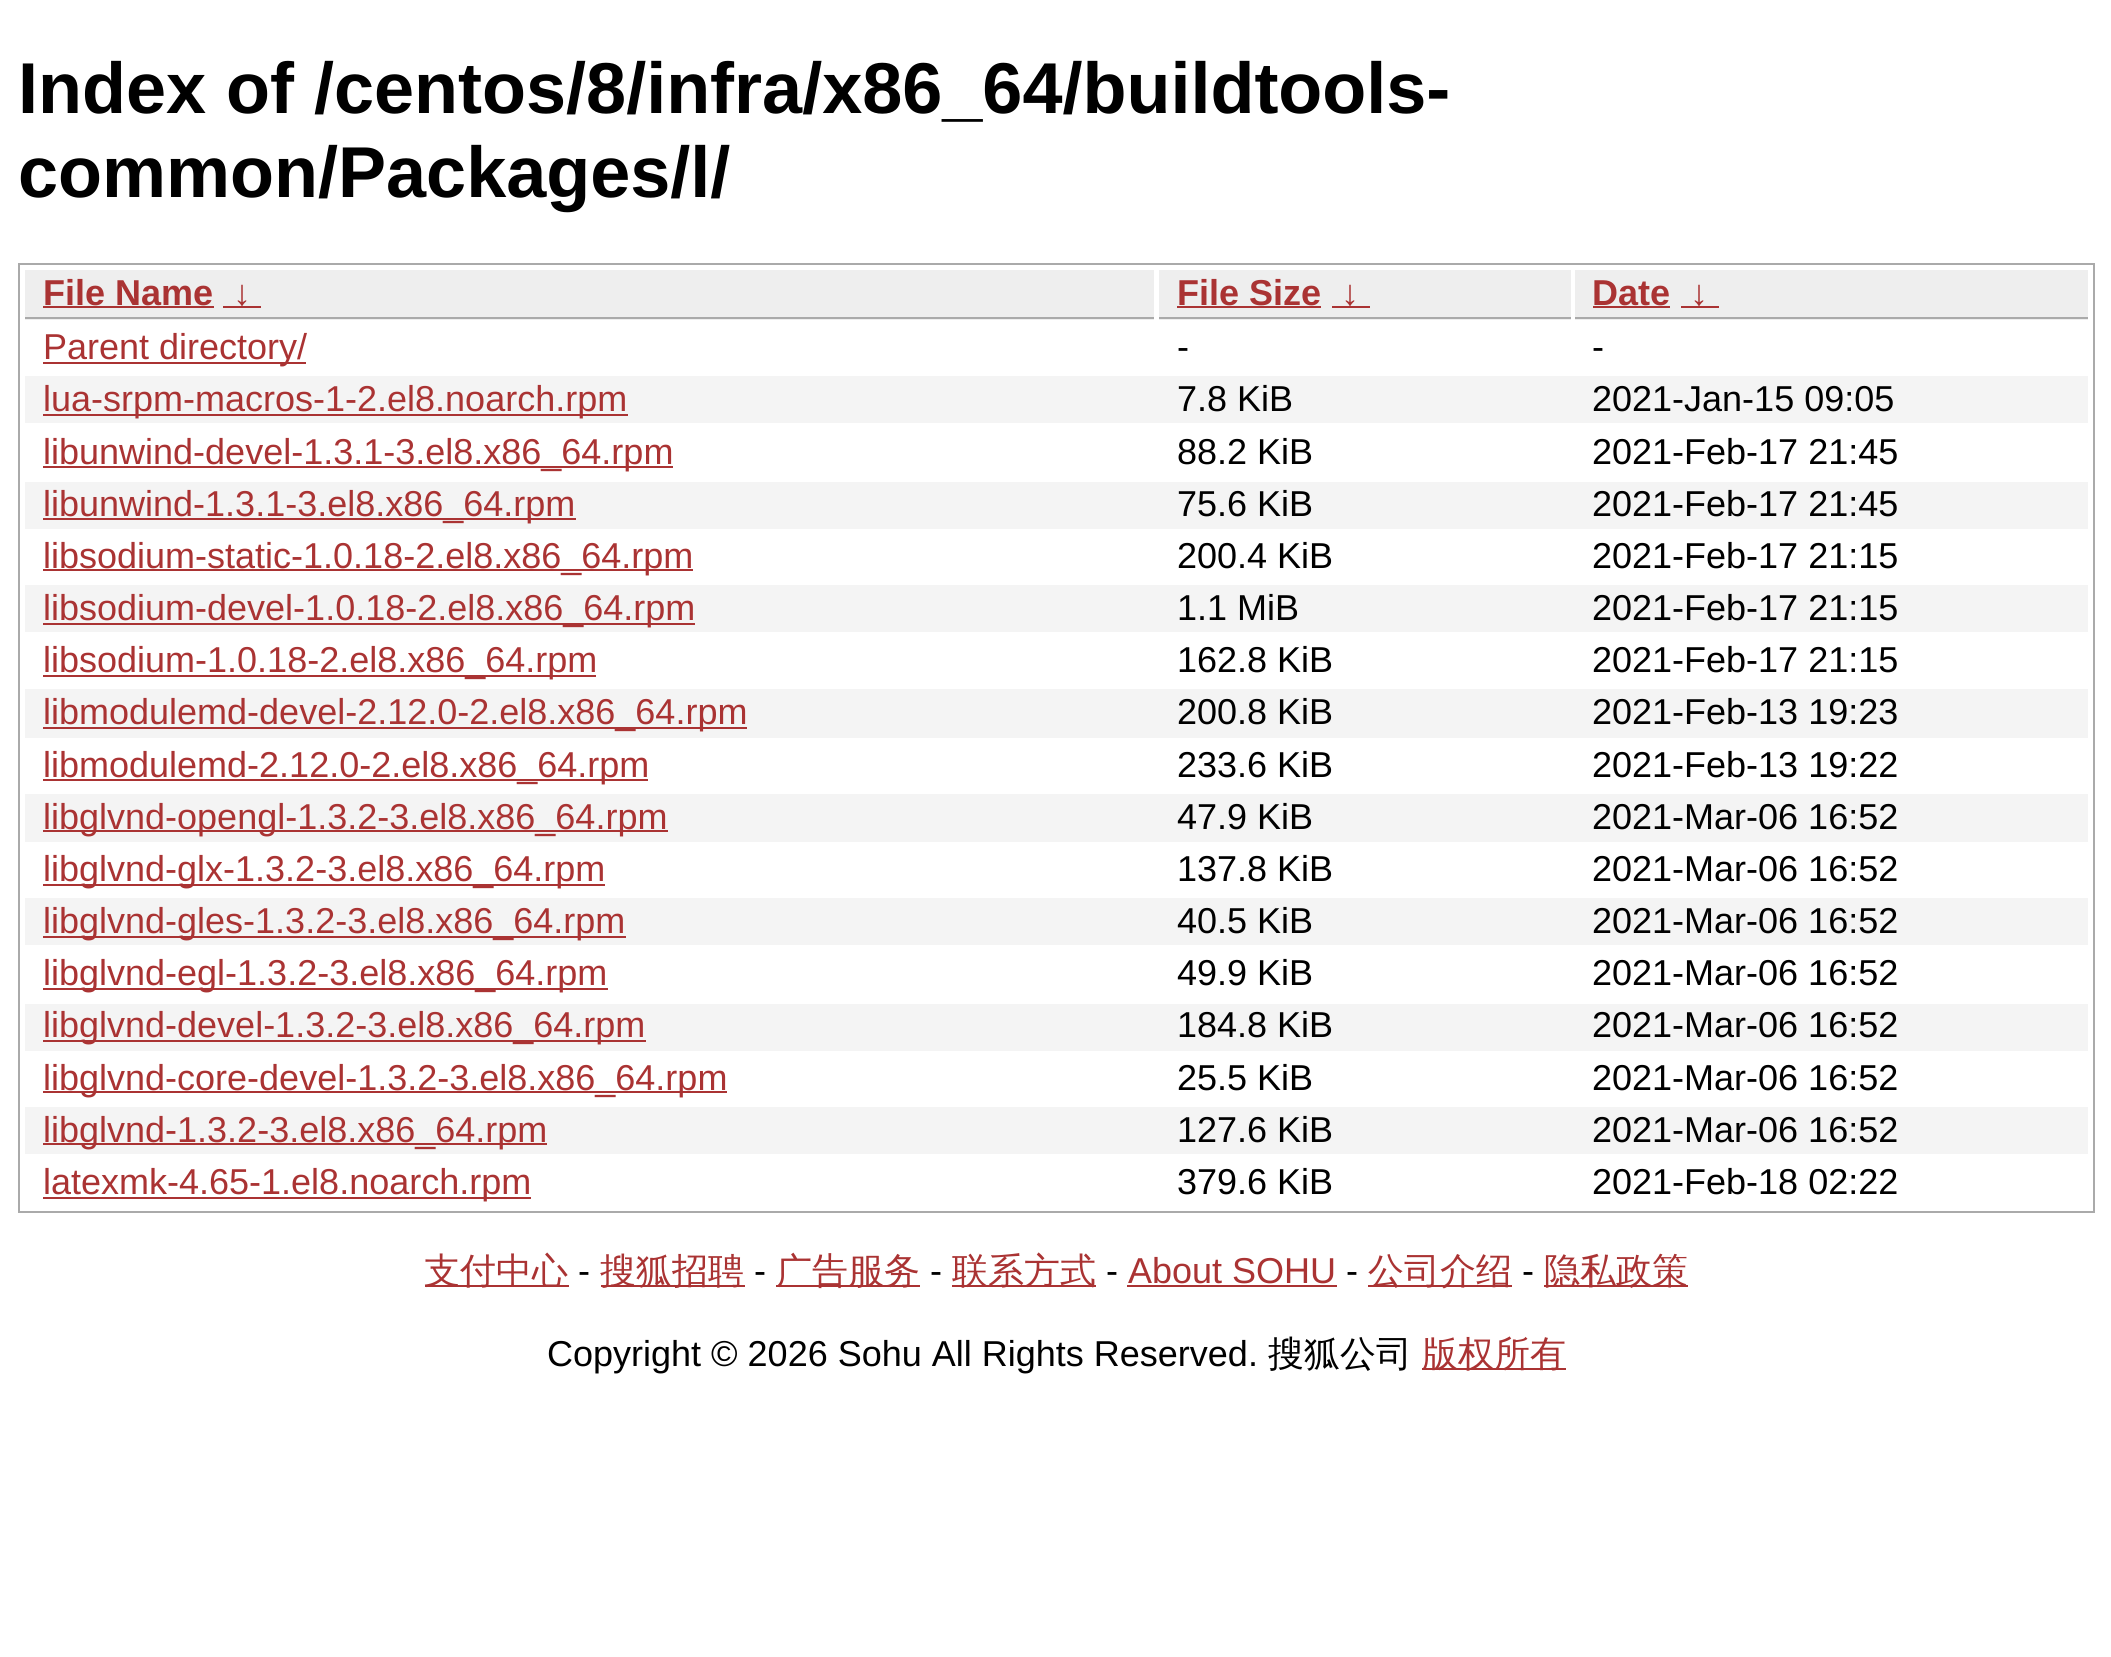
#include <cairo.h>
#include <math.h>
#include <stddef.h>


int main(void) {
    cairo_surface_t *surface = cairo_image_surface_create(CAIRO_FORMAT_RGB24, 2111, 1657);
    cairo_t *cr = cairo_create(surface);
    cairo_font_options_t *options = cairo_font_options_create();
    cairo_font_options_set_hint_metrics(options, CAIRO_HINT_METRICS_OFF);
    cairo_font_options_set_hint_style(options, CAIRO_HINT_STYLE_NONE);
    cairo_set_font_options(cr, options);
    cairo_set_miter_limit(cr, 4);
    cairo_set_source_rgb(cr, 1, 1, 1);
    cairo_paint(cr);
    cairo_select_font_face(cr, "Liberation Sans", CAIRO_FONT_SLANT_NORMAL, CAIRO_FONT_WEIGHT_BOLD);
    cairo_set_font_size(cr, 72);
    cairo_set_source_rgb(cr, 0, 0, 0);
    cairo_move_to(cr, 18, 113);
    cairo_show_text(cr, "Index of /centos/8/infra/x86_64/buildtools-");
    cairo_move_to(cr, 18, 197);
    cairo_show_text(cr, "common/Packages/l/");
    cairo_rectangle(cr, 19, 264, 2075, 948);
    cairo_set_source_rgb(cr, 0.667, 0.667, 0.667);
    cairo_stroke(cr);
    cairo_set_source_rgb(cr, 0.933, 0.933, 0.933);
    cairo_rectangle(cr, 25, 270, 1129, 50);
    cairo_fill(cr);
    cairo_set_source_rgb(cr, 0.667, 0.667, 0.667);
    cairo_rectangle(cr, 25, 317, 1129, 2);
    cairo_fill(cr);
    cairo_set_font_size(cr, 36);
    cairo_set_source_rgb(cr, 0.667, 0.2, 0.2);
    cairo_move_to(cr, 43, 305);
    cairo_show_text(cr, "File Name");
    cairo_rectangle(cr, 43, 306, 171, 2);
    cairo_fill(cr);
    cairo_rectangle(cr, 223, 306, 38, 2);
    cairo_fill(cr);
    cairo_move_to(cr, 233, 305);
    cairo_show_text(cr, "↓");
    cairo_set_source_rgb(cr, 0.933, 0.933, 0.933);
    cairo_rectangle(cr, 1159, 270, 412, 50);
    cairo_fill(cr);
    cairo_set_source_rgb(cr, 0.667, 0.667, 0.667);
    cairo_rectangle(cr, 1159, 317, 412, 2);
    cairo_fill(cr);
    cairo_set_source_rgb(cr, 0.667, 0.2, 0.2);
    cairo_move_to(cr, 1177, 305);
    cairo_show_text(cr, "File Size");
    cairo_rectangle(cr, 1177, 306, 144, 2);
    cairo_fill(cr);
    cairo_rectangle(cr, 1332, 306, 38, 2);
    cairo_fill(cr);
    cairo_move_to(cr, 1341, 305);
    cairo_show_text(cr, "↓");
    cairo_set_source_rgb(cr, 0.933, 0.933, 0.933);
    cairo_rectangle(cr, 1575, 270, 513, 50);
    cairo_fill(cr);
    cairo_set_source_rgb(cr, 0.667, 0.667, 0.667);
    cairo_rectangle(cr, 1575, 317, 513, 2);
    cairo_fill(cr);
    cairo_set_source_rgb(cr, 0.667, 0.2, 0.2);
    cairo_move_to(cr, 1592, 305);
    cairo_show_text(cr, "Date");
    cairo_rectangle(cr, 1593, 306, 77, 2);
    cairo_fill(cr);
    cairo_rectangle(cr, 1681, 306, 38, 2);
    cairo_fill(cr);
    cairo_move_to(cr, 1690, 305);
    cairo_show_text(cr, "↓");
    cairo_rectangle(cr, 43, 362, 263, 2);
    cairo_fill(cr);
    cairo_select_font_face(cr, "Liberation Sans", CAIRO_FONT_SLANT_NORMAL, CAIRO_FONT_WEIGHT_NORMAL);
    cairo_move_to(cr, 43, 359);
    cairo_show_text(cr, "Parent directory/");
    cairo_set_source_rgb(cr, 0, 0, 0);
    cairo_move_to(cr, 1177, 359);
    cairo_show_text(cr, "-");
    cairo_move_to(cr, 1592, 359);
    cairo_show_text(cr, "-");
    cairo_set_source_rgb(cr, 0.957, 0.957, 0.957);
    cairo_rectangle(cr, 25, 376, 2063, 47);
    cairo_fill(cr);
    cairo_set_source_rgb(cr, 0.667, 0.2, 0.2);
    cairo_rectangle(cr, 43, 414, 585, 2);
    cairo_fill(cr);
    cairo_move_to(cr, 43, 411);
    cairo_show_text(cr, "lua-srpm-macros-1-2.el8.noarch.rpm");
    cairo_set_source_rgb(cr, 0, 0, 0);
    cairo_move_to(cr, 1177, 411);
    cairo_show_text(cr, "7.8 KiB");
    cairo_move_to(cr, 1592, 411);
    cairo_show_text(cr, "2021-Jan-15 09:05");
    cairo_set_source_rgb(cr, 0.667, 0.2, 0.2);
    cairo_rectangle(cr, 43, 466, 630, 2);
    cairo_fill(cr);
    cairo_move_to(cr, 43, 464);
    cairo_show_text(cr, "libunwind-devel-1.3.1-3.el8.x86_64.rpm");
    cairo_set_source_rgb(cr, 0, 0, 0);
    cairo_move_to(cr, 1177, 464);
    cairo_show_text(cr, "88.2 KiB");
    cairo_move_to(cr, 1592, 464);
    cairo_show_text(cr, "2021-Feb-17 21:45");
    cairo_set_source_rgb(cr, 0.957, 0.957, 0.957);
    cairo_rectangle(cr, 25, 482, 2063, 47);
    cairo_fill(cr);
    cairo_set_source_rgb(cr, 0.667, 0.2, 0.2);
    cairo_rectangle(cr, 43, 518, 533, 2);
    cairo_fill(cr);
    cairo_move_to(cr, 43, 516);
    cairo_show_text(cr, "libunwind-1.3.1-3.el8.x86_64.rpm");
    cairo_set_source_rgb(cr, 0, 0, 0);
    cairo_move_to(cr, 1177, 516);
    cairo_show_text(cr, "75.6 KiB");
    cairo_move_to(cr, 1592, 516);
    cairo_show_text(cr, "2021-Feb-17 21:45");
    cairo_set_source_rgb(cr, 0.667, 0.2, 0.2);
    cairo_rectangle(cr, 43, 569, 650, 2);
    cairo_fill(cr);
    cairo_move_to(cr, 43, 568);
    cairo_show_text(cr, "libsodium-static-1.0.18-2.el8.x86_64.rpm");
    cairo_set_source_rgb(cr, 0, 0, 0);
    cairo_move_to(cr, 1177, 568);
    cairo_show_text(cr, "200.4 KiB");
    cairo_move_to(cr, 1592, 568);
    cairo_show_text(cr, "2021-Feb-17 21:15");
    cairo_set_source_rgb(cr, 0.957, 0.957, 0.957);
    cairo_rectangle(cr, 25, 585, 2063, 47);
    cairo_fill(cr);
    cairo_set_source_rgb(cr, 0.667, 0.2, 0.2);
    cairo_rectangle(cr, 43, 623, 652, 2);
    cairo_fill(cr);
    cairo_move_to(cr, 43, 620);
    cairo_show_text(cr, "libsodium-devel-1.0.18-2.el8.x86_64.rpm");
    cairo_set_source_rgb(cr, 0, 0, 0);
    cairo_move_to(cr, 1177, 620);
    cairo_show_text(cr, "1.1 MiB");
    cairo_move_to(cr, 1592, 620);
    cairo_show_text(cr, "2021-Feb-17 21:15");
    cairo_set_source_rgb(cr, 0.667, 0.2, 0.2);
    cairo_rectangle(cr, 43, 675, 553, 2);
    cairo_fill(cr);
    cairo_move_to(cr, 43, 672);
    cairo_show_text(cr, "libsodium-1.0.18-2.el8.x86_64.rpm");
    cairo_set_source_rgb(cr, 0, 0, 0);
    cairo_move_to(cr, 1177, 672);
    cairo_show_text(cr, "162.8 KiB");
    cairo_move_to(cr, 1592, 672);
    cairo_show_text(cr, "2021-Feb-17 21:15");
    cairo_set_source_rgb(cr, 0.957, 0.957, 0.957);
    cairo_rectangle(cr, 25, 689, 2063, 49);
    cairo_fill(cr);
    cairo_set_source_rgb(cr, 0.667, 0.2, 0.2);
    cairo_rectangle(cr, 43, 727, 704, 2);
    cairo_fill(cr);
    cairo_move_to(cr, 43, 724);
    cairo_show_text(cr, "libmodulemd-devel-2.12.0-2.el8.x86_64.rpm");
    cairo_set_source_rgb(cr, 0, 0, 0);
    cairo_move_to(cr, 1177, 724);
    cairo_show_text(cr, "200.8 KiB");
    cairo_move_to(cr, 1592, 724);
    cairo_show_text(cr, "2021-Feb-13 19:23");
    cairo_set_source_rgb(cr, 0.667, 0.2, 0.2);
    cairo_rectangle(cr, 43, 779, 605, 2);
    cairo_fill(cr);
    cairo_move_to(cr, 43, 777);
    cairo_show_text(cr, "libmodulemd-2.12.0-2.el8.x86_64.rpm");
    cairo_set_source_rgb(cr, 0, 0, 0);
    cairo_move_to(cr, 1177, 777);
    cairo_show_text(cr, "233.6 KiB");
    cairo_move_to(cr, 1592, 777);
    cairo_show_text(cr, "2021-Feb-13 19:22");
    cairo_set_source_rgb(cr, 0.957, 0.957, 0.957);
    cairo_rectangle(cr, 25, 794, 2063, 48);
    cairo_fill(cr);
    cairo_set_source_rgb(cr, 0.667, 0.2, 0.2);
    cairo_rectangle(cr, 43, 830, 625, 2);
    cairo_fill(cr);
    cairo_move_to(cr, 43, 829);
    cairo_show_text(cr, "libglvnd-opengl-1.3.2-3.el8.x86_64.rpm");
    cairo_set_source_rgb(cr, 0, 0, 0);
    cairo_move_to(cr, 1177, 829);
    cairo_show_text(cr, "47.9 KiB");
    cairo_move_to(cr, 1592, 829);
    cairo_show_text(cr, "2021-Mar-06 16:52");
    cairo_set_source_rgb(cr, 0.667, 0.2, 0.2);
    cairo_rectangle(cr, 43, 884, 562, 2);
    cairo_fill(cr);
    cairo_move_to(cr, 43, 881);
    cairo_show_text(cr, "libglvnd-glx-1.3.2-3.el8.x86_64.rpm");
    cairo_set_source_rgb(cr, 0, 0, 0);
    cairo_move_to(cr, 1177, 881);
    cairo_show_text(cr, "137.8 KiB");
    cairo_move_to(cr, 1592, 881);
    cairo_show_text(cr, "2021-Mar-06 16:52");
    cairo_set_source_rgb(cr, 0.957, 0.957, 0.957);
    cairo_rectangle(cr, 25, 898, 2063, 47);
    cairo_fill(cr);
    cairo_set_source_rgb(cr, 0.667, 0.2, 0.2);
    cairo_rectangle(cr, 43, 936, 583, 2);
    cairo_fill(cr);
    cairo_move_to(cr, 43, 933);
    cairo_show_text(cr, "libglvnd-gles-1.3.2-3.el8.x86_64.rpm");
    cairo_set_source_rgb(cr, 0, 0, 0);
    cairo_move_to(cr, 1177, 933);
    cairo_show_text(cr, "40.5 KiB");
    cairo_move_to(cr, 1592, 933);
    cairo_show_text(cr, "2021-Mar-06 16:52");
    cairo_set_source_rgb(cr, 0.667, 0.2, 0.2);
    cairo_rectangle(cr, 43, 988, 565, 2);
    cairo_fill(cr);
    cairo_move_to(cr, 43, 985);
    cairo_show_text(cr, "libglvnd-egl-1.3.2-3.el8.x86_64.rpm");
    cairo_set_source_rgb(cr, 0, 0, 0);
    cairo_move_to(cr, 1177, 985);
    cairo_show_text(cr, "49.9 KiB");
    cairo_move_to(cr, 1592, 985);
    cairo_show_text(cr, "2021-Mar-06 16:52");
    cairo_set_source_rgb(cr, 0.957, 0.957, 0.957);
    cairo_rectangle(cr, 25, 1004, 2063, 47);
    cairo_fill(cr);
    cairo_set_source_rgb(cr, 0.667, 0.2, 0.2);
    cairo_rectangle(cr, 43, 1040, 603, 2);
    cairo_fill(cr);
    cairo_move_to(cr, 43, 1037);
    cairo_show_text(cr, "libglvnd-devel-1.3.2-3.el8.x86_64.rpm");
    cairo_set_source_rgb(cr, 0, 0, 0);
    cairo_move_to(cr, 1177, 1037);
    cairo_show_text(cr, "184.8 KiB");
    cairo_move_to(cr, 1592, 1037);
    cairo_show_text(cr, "2021-Mar-06 16:52");
    cairo_set_source_rgb(cr, 0.667, 0.2, 0.2);
    cairo_rectangle(cr, 43, 1091, 684, 2);
    cairo_fill(cr);
    cairo_move_to(cr, 43, 1090);
    cairo_show_text(cr, "libglvnd-core-devel-1.3.2-3.el8.x86_64.rpm");
    cairo_set_source_rgb(cr, 0, 0, 0);
    cairo_move_to(cr, 1177, 1090);
    cairo_show_text(cr, "25.5 KiB");
    cairo_move_to(cr, 1592, 1090);
    cairo_show_text(cr, "2021-Mar-06 16:52");
    cairo_set_source_rgb(cr, 0.957, 0.957, 0.957);
    cairo_rectangle(cr, 25, 1107, 2063, 47);
    cairo_fill(cr);
    cairo_set_source_rgb(cr, 0.667, 0.2, 0.2);
    cairo_rectangle(cr, 43, 1143, 504, 2);
    cairo_fill(cr);
    cairo_move_to(cr, 43, 1142);
    cairo_show_text(cr, "libglvnd-1.3.2-3.el8.x86_64.rpm");
    cairo_set_source_rgb(cr, 0, 0, 0);
    cairo_move_to(cr, 1177, 1142);
    cairo_show_text(cr, "127.6 KiB");
    cairo_move_to(cr, 1592, 1142);
    cairo_show_text(cr, "2021-Mar-06 16:52");
    cairo_set_source_rgb(cr, 0.667, 0.2, 0.2);
    cairo_rectangle(cr, 43, 1197, 488, 2);
    cairo_fill(cr);
    cairo_move_to(cr, 43, 1194);
    cairo_show_text(cr, "latexmk-4.65-1.el8.noarch.rpm");
    cairo_set_source_rgb(cr, 0, 0, 0);
    cairo_move_to(cr, 1177, 1194);
    cairo_show_text(cr, "379.6 KiB");
    cairo_move_to(cr, 1592, 1194);
    cairo_show_text(cr, "2021-Feb-18 02:22");
    cairo_set_source_rgb(cr, 0.667, 0.2, 0.2);
    cairo_rectangle(cr, 425, 1285, 144, 2);
    cairo_fill(cr);
    cairo_select_font_face(cr, "WenQuanYi Zen Hei Medium", CAIRO_FONT_SLANT_NORMAL, CAIRO_FONT_WEIGHT_NORMAL);
    cairo_move_to(cr, 424, 1283);
    cairo_show_text(cr, "支付中心");
    cairo_select_font_face(cr, "Liberation Sans", CAIRO_FONT_SLANT_NORMAL, CAIRO_FONT_WEIGHT_NORMAL);
    cairo_set_source_rgb(cr, 0, 0, 0);
    cairo_move_to(cr, 578, 1283);
    cairo_show_text(cr, "-");
    cairo_set_source_rgb(cr, 0.667, 0.2, 0.2);
    cairo_rectangle(cr, 601, 1285, 144, 2);
    cairo_fill(cr);
    cairo_select_font_face(cr, "WenQuanYi Zen Hei Medium", CAIRO_FONT_SLANT_NORMAL, CAIRO_FONT_WEIGHT_NORMAL);
    cairo_move_to(cr, 600, 1283);
    cairo_show_text(cr, "搜狐招聘");
    cairo_select_font_face(cr, "Liberation Sans", CAIRO_FONT_SLANT_NORMAL, CAIRO_FONT_WEIGHT_NORMAL);
    cairo_set_source_rgb(cr, 0, 0, 0);
    cairo_move_to(cr, 754, 1283);
    cairo_show_text(cr, "-");
    cairo_set_source_rgb(cr, 0.667, 0.2, 0.2);
    cairo_rectangle(cr, 776, 1285, 144, 2);
    cairo_fill(cr);
    cairo_select_font_face(cr, "WenQuanYi Zen Hei Medium", CAIRO_FONT_SLANT_NORMAL, CAIRO_FONT_WEIGHT_NORMAL);
    cairo_move_to(cr, 776, 1283);
    cairo_show_text(cr, "广告服务");
    cairo_select_font_face(cr, "Liberation Sans", CAIRO_FONT_SLANT_NORMAL, CAIRO_FONT_WEIGHT_NORMAL);
    cairo_set_source_rgb(cr, 0, 0, 0);
    cairo_move_to(cr, 930, 1283);
    cairo_show_text(cr, "-");
    cairo_set_source_rgb(cr, 0.667, 0.2, 0.2);
    cairo_rectangle(cr, 952, 1285, 144, 2);
    cairo_fill(cr);
    cairo_select_font_face(cr, "WenQuanYi Zen Hei Medium", CAIRO_FONT_SLANT_NORMAL, CAIRO_FONT_WEIGHT_NORMAL);
    cairo_move_to(cr, 952, 1283);
    cairo_show_text(cr, "联系方式");
    cairo_select_font_face(cr, "Liberation Sans", CAIRO_FONT_SLANT_NORMAL, CAIRO_FONT_WEIGHT_NORMAL);
    cairo_set_source_rgb(cr, 0, 0, 0);
    cairo_move_to(cr, 1106, 1283);
    cairo_show_text(cr, "-");
    cairo_set_source_rgb(cr, 0.667, 0.2, 0.2);
    cairo_move_to(cr, 1128, 1283);
    cairo_show_text(cr, "About SOHU");
    cairo_rectangle(cr, 1127, 1285, 210, 2);
    cairo_fill(cr);
    cairo_set_source_rgb(cr, 0, 0, 0);
    cairo_move_to(cr, 1346, 1283);
    cairo_show_text(cr, "-");
    cairo_set_source_rgb(cr, 0.667, 0.2, 0.2);
    cairo_rectangle(cr, 1368, 1285, 144, 2);
    cairo_fill(cr);
    cairo_select_font_face(cr, "WenQuanYi Zen Hei Medium", CAIRO_FONT_SLANT_NORMAL, CAIRO_FONT_WEIGHT_NORMAL);
    cairo_move_to(cr, 1368, 1283);
    cairo_show_text(cr, "公司介绍");
    cairo_select_font_face(cr, "Liberation Sans", CAIRO_FONT_SLANT_NORMAL, CAIRO_FONT_WEIGHT_NORMAL);
    cairo_set_source_rgb(cr, 0, 0, 0);
    cairo_move_to(cr, 1522, 1283);
    cairo_show_text(cr, "-");
    cairo_set_source_rgb(cr, 0.667, 0.2, 0.2);
    cairo_rectangle(cr, 1544, 1285, 144, 2);
    cairo_fill(cr);
    cairo_select_font_face(cr, "WenQuanYi Zen Hei Medium", CAIRO_FONT_SLANT_NORMAL, CAIRO_FONT_WEIGHT_NORMAL);
    cairo_move_to(cr, 1544, 1283);
    cairo_show_text(cr, "隐私政策");
    cairo_select_font_face(cr, "Liberation Sans", CAIRO_FONT_SLANT_NORMAL, CAIRO_FONT_WEIGHT_NORMAL);
    cairo_set_source_rgb(cr, 0, 0, 0);
    cairo_move_to(cr, 547, 1366);
    cairo_show_text(cr, "Copyright © 2026 Sohu All Rights Reserved.");
    cairo_select_font_face(cr, "WenQuanYi Zen Hei Medium", CAIRO_FONT_SLANT_NORMAL, CAIRO_FONT_WEIGHT_NORMAL);
    cairo_move_to(cr, 1268, 1366);
    cairo_show_text(cr, "搜狐公司");
    cairo_set_source_rgb(cr, 0.667, 0.2, 0.2);
    cairo_rectangle(cr, 1422, 1368, 144, 2);
    cairo_fill(cr);
    cairo_move_to(cr, 1422, 1366);
    cairo_show_text(cr, "版权所有");
    cairo_surface_write_to_png(surface, "page.png");
    cairo_font_options_destroy(options);
    cairo_destroy(cr);
    cairo_surface_destroy(surface);
    return 0;
}
